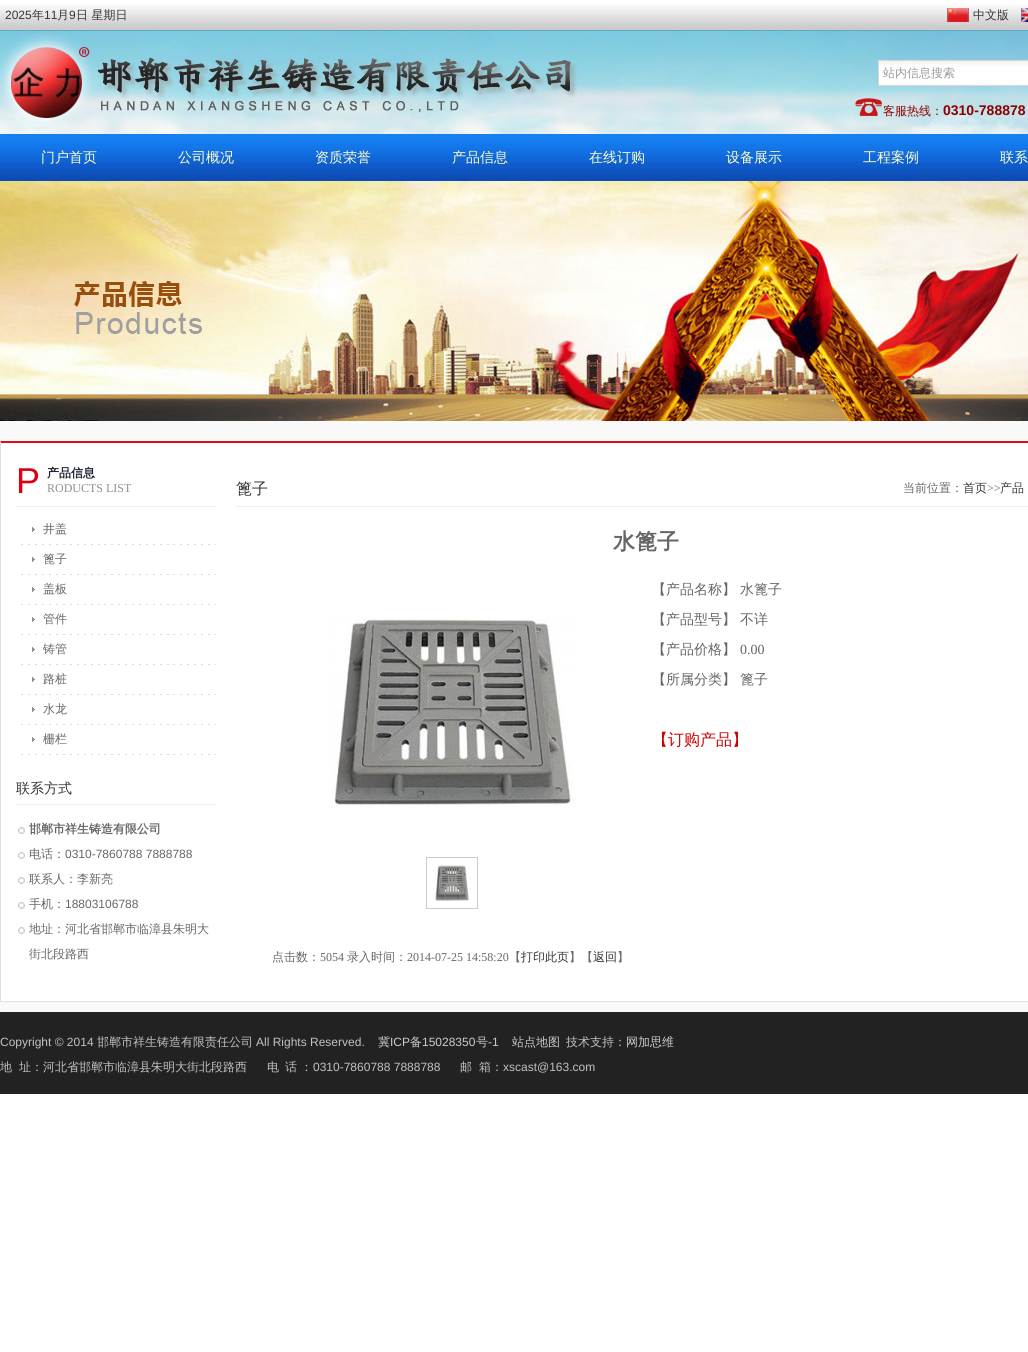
#include <cairo.h>
#include <math.h>
#include <stddef.h>


static void picture(cairo_t *cr, const char *path, double x, double y, double w, double h) {
    cairo_surface_t *image = cairo_image_surface_create_from_png(path);
    cairo_save(cr);
    cairo_set_source_surface(cr, image, x, y);
    cairo_rectangle(cr, x, y, w, h);
    cairo_fill(cr);
    cairo_restore(cr);
    cairo_surface_destroy(image);
}

int main(void) {
    cairo_surface_t *surface = cairo_image_surface_create(CAIRO_FORMAT_RGB24, 1028, 1352);
    cairo_t *cr = cairo_create(surface);
    cairo_font_options_t *options = cairo_font_options_create();
    cairo_font_options_set_hint_metrics(options, CAIRO_HINT_METRICS_OFF);
    cairo_font_options_set_hint_style(options, CAIRO_HINT_STYLE_NONE);
    cairo_set_font_options(cr, options);
    cairo_set_miter_limit(cr, 4);
    cairo_set_source_rgb(cr, 1, 1, 1);
    cairo_paint(cr);
    picture(cr, "img1.png", 0, 31, 1028, 103);
    picture(cr, "img2.png", 0, 4, 1028, 27);
    cairo_select_font_face(cr, "Liberation Sans", CAIRO_FONT_SLANT_NORMAL, CAIRO_FONT_WEIGHT_NORMAL);
    cairo_set_font_size(cr, 12);
    cairo_set_source_rgb(cr, 0.208, 0.208, 0.208);
    cairo_move_to(cr, 5, 19);
    cairo_show_text(cr, "2025");
    cairo_select_font_face(cr, "WenQuanYi Zen Hei Medium", CAIRO_FONT_SLANT_NORMAL, CAIRO_FONT_WEIGHT_NORMAL);
    cairo_move_to(cr, 32, 19);
    cairo_show_text(cr, "年");
    cairo_select_font_face(cr, "Liberation Sans", CAIRO_FONT_SLANT_NORMAL, CAIRO_FONT_WEIGHT_NORMAL);
    cairo_move_to(cr, 44, 19);
    cairo_show_text(cr, "11");
    cairo_select_font_face(cr, "WenQuanYi Zen Hei Medium", CAIRO_FONT_SLANT_NORMAL, CAIRO_FONT_WEIGHT_NORMAL);
    cairo_move_to(cr, 57, 19);
    cairo_show_text(cr, "月");
    cairo_select_font_face(cr, "Liberation Sans", CAIRO_FONT_SLANT_NORMAL, CAIRO_FONT_WEIGHT_NORMAL);
    cairo_move_to(cr, 69, 19);
    cairo_show_text(cr, "9");
    cairo_select_font_face(cr, "WenQuanYi Zen Hei Medium", CAIRO_FONT_SLANT_NORMAL, CAIRO_FONT_WEIGHT_NORMAL);
    cairo_move_to(cr, 76, 19);
    cairo_show_text(cr, "日 星期日");
    picture(cr, "img3.png", 947, 8, 22, 14);
    cairo_move_to(cr, 973, 19);
    cairo_show_text(cr, "中文版");
    picture(cr, "img4.png", 1021, 8, 7, 14);
    picture(cr, "img5.png", 0, 33, 577, 94);
    picture(cr, "img6.png", 878, 60, 150, 26);
    cairo_set_source_rgb(cr, 0.6, 0.6, 0.6);
    cairo_move_to(cr, 883, 77);
    cairo_show_text(cr, "站内信息搜索");
    picture(cr, "img7.png", 855, 98, 27, 18);
    cairo_set_source_rgb(cr, 0.557, 0, 0);
    cairo_move_to(cr, 883, 115);
    cairo_show_text(cr, "客服热线：");
    cairo_select_font_face(cr, "Liberation Sans", CAIRO_FONT_SLANT_NORMAL, CAIRO_FONT_WEIGHT_BOLD);
    cairo_set_font_size(cr, 14);
    cairo_move_to(cr, 943, 115);
    cairo_show_text(cr, "0310-788878");
    picture(cr, "img8.png", 0, 134, 1028, 47);
    cairo_select_font_face(cr, "WenQuanYi Zen Hei Medium", CAIRO_FONT_SLANT_NORMAL, CAIRO_FONT_WEIGHT_NORMAL);
    cairo_set_source_rgb(cr, 1, 1, 0.8);
    cairo_move_to(cr, 41, 162);
    cairo_show_text(cr, "门户首页");
    cairo_move_to(cr, 178, 162);
    cairo_show_text(cr, "公司概况");
    cairo_move_to(cr, 315, 162);
    cairo_show_text(cr, "资质荣誉");
    cairo_move_to(cr, 452, 162);
    cairo_show_text(cr, "产品信息");
    cairo_move_to(cr, 589, 162);
    cairo_show_text(cr, "在线订购");
    cairo_move_to(cr, 726, 162);
    cairo_show_text(cr, "设备展示");
    cairo_move_to(cr, 863, 162);
    cairo_show_text(cr, "工程案例");
    cairo_move_to(cr, 1000, 162);
    cairo_show_text(cr, "联系");
    picture(cr, "img9.png", 0, 181, 1028, 240);
    cairo_set_source_rgb(cr, 0.976, 0.976, 0.976);
    cairo_rectangle(cr, 0, 421, 1028, 591);
    cairo_fill(cr);
    cairo_set_source_rgb(cr, 1, 1, 1);
    cairo_rectangle(cr, 1, 443, 1027, 558);
    cairo_fill(cr);
    cairo_set_source_rgb(cr, 0.875, 0.047, 0.106);
    cairo_new_path(cr);
    cairo_move_to(cr, 0, 441);
    cairo_line_to(cr, 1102, 441);
    cairo_line_to(cr, 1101, 443);
    cairo_line_to(cr, 1, 443);
    cairo_close_path(cr);
    cairo_fill(cr);
    cairo_set_source_rgb(cr, 0.878, 0.878, 0.878);
    cairo_rectangle(cr, 0, 1001, 1028, 1);
    cairo_fill(cr);
    cairo_new_path(cr);
    cairo_move_to(cr, 0, 1002);
    cairo_line_to(cr, 0, 441);
    cairo_line_to(cr, 1, 443);
    cairo_line_to(cr, 1, 1001);
    cairo_close_path(cr);
    cairo_fill(cr);
    cairo_set_source_rgb(cr, 0.929, 0.929, 0.929);
    cairo_rectangle(cr, 16, 506, 200, 1);
    cairo_fill(cr);
    cairo_select_font_face(cr, "Liberation Sans", CAIRO_FONT_SLANT_NORMAL, CAIRO_FONT_WEIGHT_NORMAL);
    cairo_set_font_size(cr, 36);
    cairo_set_source_rgb(cr, 0.871, 0, 0.063);
    cairo_move_to(cr, 16, 493);
    cairo_show_text(cr, "P");
    cairo_select_font_face(cr, "WenQuanYi Zen Hei", CAIRO_FONT_SLANT_NORMAL, CAIRO_FONT_WEIGHT_BOLD);
    cairo_set_font_size(cr, 12);
    cairo_set_source_rgb(cr, 0.11, 0.122, 0.18);
    cairo_move_to(cr, 47, 477);
    cairo_show_text(cr, "产品信息");
    cairo_select_font_face(cr, "Liberation Serif", CAIRO_FONT_SLANT_NORMAL, CAIRO_FONT_WEIGHT_NORMAL);
    cairo_set_source_rgb(cr, 0.561, 0.565, 0.584);
    cairo_move_to(cr, 47, 492);
    cairo_show_text(cr, "RODUCTS LIST");
    picture(cr, "img10.png", 21, 527, 195, 18);
    cairo_select_font_face(cr, "WenQuanYi Zen Hei Medium", CAIRO_FONT_SLANT_NORMAL, CAIRO_FONT_WEIGHT_NORMAL);
    cairo_set_source_rgb(cr, 0.4, 0.4, 0.4);
    cairo_move_to(cr, 43, 533);
    cairo_show_text(cr, "井盖");
    picture(cr, "img10.png", 21, 557, 195, 18);
    cairo_move_to(cr, 43, 563);
    cairo_show_text(cr, "篦子");
    picture(cr, "img10.png", 21, 587, 195, 18);
    cairo_move_to(cr, 43, 593);
    cairo_show_text(cr, "盖板");
    picture(cr, "img10.png", 21, 617, 195, 18);
    cairo_move_to(cr, 43, 623);
    cairo_show_text(cr, "管件");
    picture(cr, "img10.png", 21, 647, 195, 18);
    cairo_move_to(cr, 43, 653);
    cairo_show_text(cr, "铸管");
    picture(cr, "img10.png", 21, 677, 195, 18);
    cairo_move_to(cr, 43, 683);
    cairo_show_text(cr, "路桩");
    picture(cr, "img10.png", 21, 707, 195, 18);
    cairo_move_to(cr, 43, 713);
    cairo_show_text(cr, "水龙");
    picture(cr, "img10.png", 21, 737, 195, 18);
    cairo_move_to(cr, 43, 743);
    cairo_show_text(cr, "栅栏");
    cairo_set_source_rgb(cr, 0.937, 0.937, 0.937);
    cairo_rectangle(cr, 16, 804, 200, 1);
    cairo_fill(cr);
    cairo_set_font_size(cr, 14);
    cairo_set_source_rgb(cr, 0.208, 0.208, 0.208);
    cairo_move_to(cr, 16, 793);
    cairo_show_text(cr, "联系方式");
    picture(cr, "img11.png", 18, 827, 7, 7);
    cairo_select_font_face(cr, "WenQuanYi Zen Hei", CAIRO_FONT_SLANT_NORMAL, CAIRO_FONT_WEIGHT_BOLD);
    cairo_set_font_size(cr, 12);
    cairo_set_source_rgb(cr, 0.4, 0.4, 0.4);
    cairo_move_to(cr, 29, 833);
    cairo_show_text(cr, "邯郸市祥生铸造有限公司");
    picture(cr, "img11.png", 18, 852, 7, 7);
    cairo_select_font_face(cr, "WenQuanYi Zen Hei Medium", CAIRO_FONT_SLANT_NORMAL, CAIRO_FONT_WEIGHT_NORMAL);
    cairo_move_to(cr, 29, 858);
    cairo_show_text(cr, "电话：");
    cairo_select_font_face(cr, "Liberation Sans", CAIRO_FONT_SLANT_NORMAL, CAIRO_FONT_WEIGHT_NORMAL);
    cairo_move_to(cr, 65, 858);
    cairo_show_text(cr, "0310-7860788 7888788");
    picture(cr, "img11.png", 18, 877, 7, 7);
    cairo_select_font_face(cr, "WenQuanYi Zen Hei Medium", CAIRO_FONT_SLANT_NORMAL, CAIRO_FONT_WEIGHT_NORMAL);
    cairo_move_to(cr, 29, 883);
    cairo_show_text(cr, "联系人：李新亮");
    picture(cr, "img11.png", 18, 902, 7, 7);
    cairo_move_to(cr, 29, 908);
    cairo_show_text(cr, "手机：");
    cairo_select_font_face(cr, "Liberation Sans", CAIRO_FONT_SLANT_NORMAL, CAIRO_FONT_WEIGHT_NORMAL);
    cairo_move_to(cr, 65, 908);
    cairo_show_text(cr, "18803106788");
    picture(cr, "img11.png", 18, 927, 7, 7);
    cairo_select_font_face(cr, "WenQuanYi Zen Hei Medium", CAIRO_FONT_SLANT_NORMAL, CAIRO_FONT_WEIGHT_NORMAL);
    cairo_move_to(cr, 29, 933);
    cairo_show_text(cr, "地址：河北省邯郸市临漳县朱明大");
    cairo_move_to(cr, 29, 958);
    cairo_show_text(cr, "街北段路西");
    cairo_set_source_rgb(cr, 0.929, 0.929, 0.929);
    cairo_rectangle(cr, 236, 506, 792, 1);
    cairo_fill(cr);
    cairo_set_font_size(cr, 16);
    cairo_set_source_rgb(cr, 0.208, 0.208, 0.208);
    cairo_move_to(cr, 236, 494);
    cairo_show_text(cr, "篦子");
    cairo_set_font_size(cr, 12);
    cairo_set_source_rgb(cr, 0.4, 0.4, 0.4);
    cairo_move_to(cr, 903, 492);
    cairo_show_text(cr, "当前位置：");
    cairo_set_source_rgb(cr, 0.208, 0.208, 0.208);
    cairo_move_to(cr, 963, 492);
    cairo_show_text(cr, "首页");
    cairo_select_font_face(cr, "Liberation Serif", CAIRO_FONT_SLANT_NORMAL, CAIRO_FONT_WEIGHT_NORMAL);
    cairo_set_source_rgb(cr, 0.4, 0.4, 0.4);
    cairo_move_to(cr, 987, 492);
    cairo_show_text(cr, ">>");
    cairo_select_font_face(cr, "WenQuanYi Zen Hei Medium", CAIRO_FONT_SLANT_NORMAL, CAIRO_FONT_WEIGHT_NORMAL);
    cairo_set_source_rgb(cr, 0.208, 0.208, 0.208);
    cairo_move_to(cr, 1000, 492);
    cairo_show_text(cr, "产品");
    cairo_select_font_face(cr, "WenQuanYi Zen Hei", CAIRO_FONT_SLANT_NORMAL, CAIRO_FONT_WEIGHT_BOLD);
    cairo_set_font_size(cr, 22);
    cairo_set_source_rgb(cr, 0.4, 0.4, 0.4);
    cairo_move_to(cr, 613, 549);
    cairo_show_text(cr, "水篦子");
    picture(cr, "img12.png", 329, 617, 247, 192);
    cairo_rectangle(cr, 426.5, 857.5, 51, 51);
    cairo_set_source_rgb(cr, 0.8, 0.8, 0.8);
    cairo_set_line_width(cr, 1);
    cairo_stroke(cr);
    picture(cr, "img13.png", 435, 865, 35, 36);
    cairo_select_font_face(cr, "WenQuanYi Zen Hei Medium", CAIRO_FONT_SLANT_NORMAL, CAIRO_FONT_WEIGHT_NORMAL);
    cairo_set_font_size(cr, 14);
    cairo_set_source_rgb(cr, 0.4, 0.4, 0.4);
    cairo_move_to(cr, 652, 594);
    cairo_show_text(cr, "【产品名称】");
    cairo_move_to(cr, 740, 594);
    cairo_show_text(cr, "水篦子");
    cairo_move_to(cr, 652, 624);
    cairo_show_text(cr, "【产品型号】");
    cairo_move_to(cr, 740, 624);
    cairo_show_text(cr, "不详");
    cairo_move_to(cr, 652, 654);
    cairo_show_text(cr, "【产品价格】");
    cairo_select_font_face(cr, "Liberation Serif", CAIRO_FONT_SLANT_NORMAL, CAIRO_FONT_WEIGHT_NORMAL);
    cairo_move_to(cr, 740, 654);
    cairo_show_text(cr, "0.00");
    cairo_select_font_face(cr, "WenQuanYi Zen Hei Medium", CAIRO_FONT_SLANT_NORMAL, CAIRO_FONT_WEIGHT_NORMAL);
    cairo_move_to(cr, 652, 684);
    cairo_show_text(cr, "【所属分类】");
    cairo_move_to(cr, 740, 684);
    cairo_show_text(cr, "篦子");
    cairo_set_font_size(cr, 16);
    cairo_set_source_rgb(cr, 0.8, 0, 0);
    cairo_move_to(cr, 652, 745);
    cairo_show_text(cr, "【订购产品】");
    cairo_set_font_size(cr, 12);
    cairo_set_source_rgb(cr, 0.4, 0.4, 0.4);
    cairo_move_to(cr, 272, 961);
    cairo_show_text(cr, "点击数：");
    cairo_select_font_face(cr, "Liberation Serif", CAIRO_FONT_SLANT_NORMAL, CAIRO_FONT_WEIGHT_NORMAL);
    cairo_move_to(cr, 320, 961);
    cairo_show_text(cr, "5054");
    cairo_select_font_face(cr, "WenQuanYi Zen Hei Medium", CAIRO_FONT_SLANT_NORMAL, CAIRO_FONT_WEIGHT_NORMAL);
    cairo_move_to(cr, 347, 961);
    cairo_show_text(cr, "录入时间：");
    cairo_select_font_face(cr, "Liberation Serif", CAIRO_FONT_SLANT_NORMAL, CAIRO_FONT_WEIGHT_NORMAL);
    cairo_move_to(cr, 407, 961);
    cairo_show_text(cr, "2014-07-25 14:58:20");
    cairo_select_font_face(cr, "WenQuanYi Zen Hei Medium", CAIRO_FONT_SLANT_NORMAL, CAIRO_FONT_WEIGHT_NORMAL);
    cairo_move_to(cr, 509, 961);
    cairo_show_text(cr, "【");
    cairo_set_source_rgb(cr, 0.208, 0.208, 0.208);
    cairo_move_to(cr, 521, 961);
    cairo_show_text(cr, "打印此页");
    cairo_set_source_rgb(cr, 0.4, 0.4, 0.4);
    cairo_move_to(cr, 569, 961);
    cairo_show_text(cr, "】【");
    cairo_set_source_rgb(cr, 0.208, 0.208, 0.208);
    cairo_move_to(cr, 593, 961);
    cairo_show_text(cr, "返回");
    cairo_set_source_rgb(cr, 0.4, 0.4, 0.4);
    cairo_move_to(cr, 617, 961);
    cairo_show_text(cr, "】");
    cairo_set_source_rgb(cr, 0.133, 0.133, 0.133);
    cairo_rectangle(cr, 0, 1012, 1028, 82);
    cairo_fill(cr);
    cairo_select_font_face(cr, "Liberation Sans", CAIRO_FONT_SLANT_NORMAL, CAIRO_FONT_WEIGHT_NORMAL);
    cairo_set_source_rgb(cr, 0.761, 0.761, 0.761);
    cairo_move_to(cr, 0, 1046);
    cairo_show_text(cr, "Copyright © 2014");
    cairo_select_font_face(cr, "WenQuanYi Zen Hei Medium", CAIRO_FONT_SLANT_NORMAL, CAIRO_FONT_WEIGHT_NORMAL);
    cairo_move_to(cr, 97, 1046);
    cairo_show_text(cr, "邯郸市祥生铸造有限责任公司");
    cairo_select_font_face(cr, "Liberation Sans", CAIRO_FONT_SLANT_NORMAL, CAIRO_FONT_WEIGHT_NORMAL);
    cairo_move_to(cr, 256, 1046);
    cairo_show_text(cr, "All Rights Reserved.");
    cairo_select_font_face(cr, "WenQuanYi Zen Hei Medium", CAIRO_FONT_SLANT_NORMAL, CAIRO_FONT_WEIGHT_NORMAL);
    cairo_set_source_rgb(cr, 0.8, 0.8, 0.8);
    cairo_move_to(cr, 378, 1046);
    cairo_show_text(cr, "冀");
    cairo_select_font_face(cr, "Liberation Sans", CAIRO_FONT_SLANT_NORMAL, CAIRO_FONT_WEIGHT_NORMAL);
    cairo_move_to(cr, 390, 1046);
    cairo_show_text(cr, "ICP");
    cairo_select_font_face(cr, "WenQuanYi Zen Hei Medium", CAIRO_FONT_SLANT_NORMAL, CAIRO_FONT_WEIGHT_NORMAL);
    cairo_move_to(cr, 410, 1046);
    cairo_show_text(cr, "备");
    cairo_select_font_face(cr, "Liberation Sans", CAIRO_FONT_SLANT_NORMAL, CAIRO_FONT_WEIGHT_NORMAL);
    cairo_move_to(cr, 422, 1046);
    cairo_show_text(cr, "15028350");
    cairo_select_font_face(cr, "WenQuanYi Zen Hei Medium", CAIRO_FONT_SLANT_NORMAL, CAIRO_FONT_WEIGHT_NORMAL);
    cairo_move_to(cr, 476, 1046);
    cairo_show_text(cr, "号");
    cairo_select_font_face(cr, "Liberation Sans", CAIRO_FONT_SLANT_NORMAL, CAIRO_FONT_WEIGHT_NORMAL);
    cairo_move_to(cr, 488, 1046);
    cairo_show_text(cr, "-1");
    cairo_select_font_face(cr, "WenQuanYi Zen Hei Medium", CAIRO_FONT_SLANT_NORMAL, CAIRO_FONT_WEIGHT_NORMAL);
    cairo_move_to(cr, 512, 1046);
    cairo_show_text(cr, "站点地图");
    cairo_set_source_rgb(cr, 0.761, 0.761, 0.761);
    cairo_move_to(cr, 566, 1046);
    cairo_show_text(cr, "技术支持：");
    cairo_set_source_rgb(cr, 0.8, 0.8, 0.8);
    cairo_move_to(cr, 626, 1046);
    cairo_show_text(cr, "网加思维");
    cairo_set_source_rgb(cr, 0.761, 0.761, 0.761);
    cairo_move_to(cr, 0, 1071);
    cairo_show_text(cr, "地");
    cairo_move_to(cr, 19, 1071);
    cairo_show_text(cr, "址：河北省邯郸市临漳县朱明大街北段路西");
    cairo_move_to(cr, 267, 1071);
    cairo_show_text(cr, "电");
    cairo_move_to(cr, 285, 1071);
    cairo_show_text(cr, "话 ：");
    cairo_select_font_face(cr, "Liberation Sans", CAIRO_FONT_SLANT_NORMAL, CAIRO_FONT_WEIGHT_NORMAL);
    cairo_move_to(cr, 313, 1071);
    cairo_show_text(cr, "0310-7860788 7888788");
    cairo_select_font_face(cr, "WenQuanYi Zen Hei Medium", CAIRO_FONT_SLANT_NORMAL, CAIRO_FONT_WEIGHT_NORMAL);
    cairo_move_to(cr, 460, 1071);
    cairo_show_text(cr, "邮");
    cairo_move_to(cr, 479, 1071);
    cairo_show_text(cr, "箱：");
    cairo_select_font_face(cr, "Liberation Sans", CAIRO_FONT_SLANT_NORMAL, CAIRO_FONT_WEIGHT_NORMAL);
    cairo_move_to(cr, 503, 1071);
    cairo_show_text(cr, "xscast@163.com");
    cairo_surface_write_to_png(surface, "page.png");
    cairo_font_options_destroy(options);
    cairo_destroy(cr);
    cairo_surface_destroy(surface);
    return 0;
}
